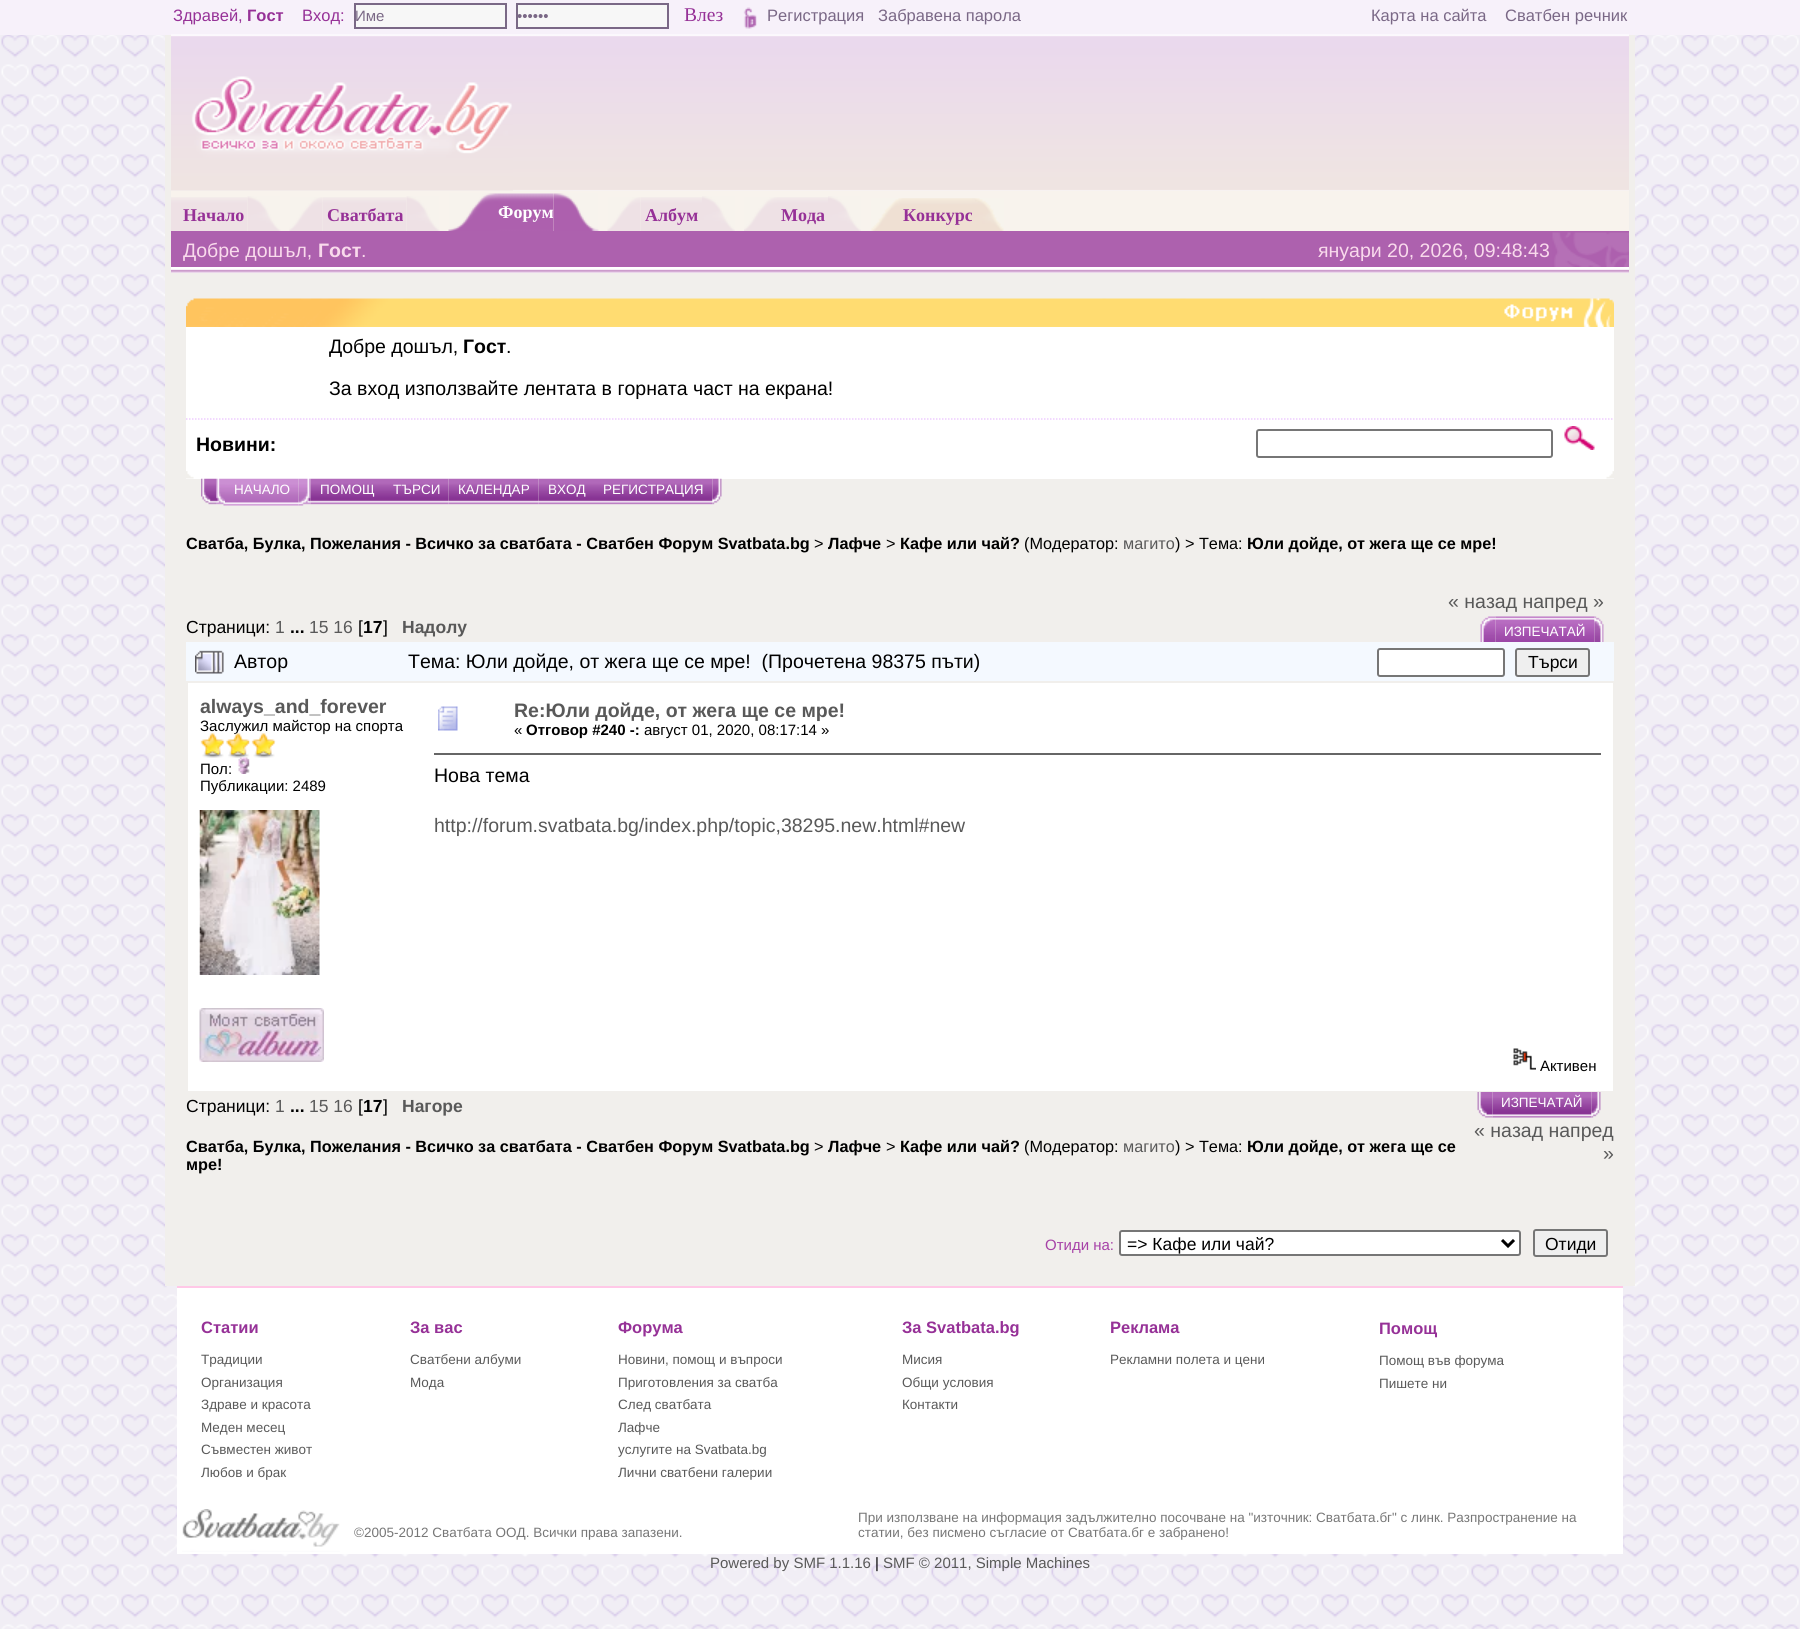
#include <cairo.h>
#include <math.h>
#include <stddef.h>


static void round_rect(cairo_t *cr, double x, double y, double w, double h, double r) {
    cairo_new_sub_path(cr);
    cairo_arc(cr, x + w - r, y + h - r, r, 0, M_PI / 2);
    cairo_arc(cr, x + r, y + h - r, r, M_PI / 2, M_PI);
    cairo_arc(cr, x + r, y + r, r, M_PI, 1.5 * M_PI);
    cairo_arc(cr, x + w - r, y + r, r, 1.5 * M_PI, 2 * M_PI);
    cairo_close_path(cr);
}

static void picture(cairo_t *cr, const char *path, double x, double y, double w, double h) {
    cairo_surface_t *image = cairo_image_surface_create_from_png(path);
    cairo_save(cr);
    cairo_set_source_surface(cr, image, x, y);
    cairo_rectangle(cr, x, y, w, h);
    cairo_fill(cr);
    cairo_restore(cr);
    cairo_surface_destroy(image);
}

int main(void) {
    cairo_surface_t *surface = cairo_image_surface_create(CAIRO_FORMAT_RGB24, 1800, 1629);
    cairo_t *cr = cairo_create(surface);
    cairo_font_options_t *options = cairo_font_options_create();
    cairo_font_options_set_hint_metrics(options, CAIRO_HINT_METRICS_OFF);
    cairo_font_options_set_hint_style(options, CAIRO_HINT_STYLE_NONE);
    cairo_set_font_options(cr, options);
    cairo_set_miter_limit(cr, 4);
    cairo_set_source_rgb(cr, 1, 1, 1);
    cairo_paint(cr);
    picture(cr, "img1.png", 0, 35, 1800, 1594);
    cairo_set_source_rgb(cr, 0.965, 0.945, 0.98);
    cairo_rectangle(cr, 0, 0, 1800, 35);
    cairo_fill(cr);
    cairo_select_font_face(cr, "Liberation Sans", CAIRO_FONT_SLANT_NORMAL, CAIRO_FONT_WEIGHT_NORMAL);
    cairo_set_font_size(cr, 16.5);
    cairo_set_source_rgb(cr, 0.588, 0.192, 0.592);
    cairo_move_to(cr, 173, 21);
    cairo_show_text(cr, "Здравей,");
    cairo_select_font_face(cr, "Liberation Sans", CAIRO_FONT_SLANT_NORMAL, CAIRO_FONT_WEIGHT_BOLD);
    cairo_move_to(cr, 247, 21);
    cairo_show_text(cr, "Гост");
    cairo_select_font_face(cr, "Liberation Sans", CAIRO_FONT_SLANT_NORMAL, CAIRO_FONT_WEIGHT_NORMAL);
    cairo_move_to(cr, 302, 21);
    cairo_show_text(cr, "Вход:");
    cairo_set_source_rgb(cr, 0.965, 0.965, 0.965);
    cairo_rectangle(cr, 355, 4, 151, 24);
    cairo_fill_preserve(cr);
    cairo_set_source_rgb(cr, 0.478, 0.408, 0.525);
    cairo_stroke(cr);
    cairo_set_font_size(cr, 15);
    cairo_move_to(cr, 355, 21);
    cairo_show_text(cr, "Име");
    cairo_set_source_rgb(cr, 0.965, 0.965, 0.965);
    cairo_rectangle(cr, 517, 4, 151, 24);
    cairo_fill_preserve(cr);
    cairo_set_source_rgb(cr, 0.478, 0.408, 0.525);
    cairo_stroke(cr);
    cairo_move_to(cr, 517, 21);
    cairo_show_text(cr, "••••••");
    cairo_select_font_face(cr, "Liberation Serif", CAIRO_FONT_SLANT_NORMAL, CAIRO_FONT_WEIGHT_NORMAL);
    cairo_set_font_size(cr, 19.5);
    cairo_set_source_rgb(cr, 0.588, 0.192, 0.592);
    cairo_move_to(cr, 684, 21);
    cairo_show_text(cr, "Влез");
    picture(cr, "img2.png", 743, 7, 14, 22);
    cairo_select_font_face(cr, "Liberation Sans", CAIRO_FONT_SLANT_NORMAL, CAIRO_FONT_WEIGHT_NORMAL);
    cairo_set_font_size(cr, 16.5);
    cairo_set_source_rgb(cr, 0.478, 0.408, 0.525);
    cairo_move_to(cr, 767, 21);
    cairo_show_text(cr, "Регистрация");
    cairo_move_to(cr, 878, 21);
    cairo_show_text(cr, "Забравена парола");
    cairo_move_to(cr, 1371, 21);
    cairo_show_text(cr, "Карта на сайта");
    cairo_move_to(cr, 1505, 21);
    cairo_show_text(cr, "Сватбен речник");
    cairo_set_source_rgb(cr, 0.945, 0.937, 0.922);
    cairo_rectangle(cr, 165, 35, 1470, 1251);
    cairo_fill(cr);
    cairo_set_source_rgb(cr, 1, 1, 1);
    cairo_rectangle(cr, 171, 190, 1458, 1);
    cairo_fill(cr);
    picture(cr, "img3.png", 171, 34, 1458, 157);
    picture(cr, "img4.png", 171, 76, 342, 115);
    cairo_set_source_rgb(cr, 0.969, 0.953, 0.929);
    cairo_rectangle(cr, 171, 191, 1458, 40);
    cairo_fill(cr);
    picture(cr, "img5.png", 171, 197, 77, 34);
    cairo_select_font_face(cr, "Liberation Serif", CAIRO_FONT_SLANT_NORMAL, CAIRO_FONT_WEIGHT_BOLD);
    cairo_set_font_size(cr, 18);
    cairo_set_source_rgb(cr, 0.588, 0.192, 0.592);
    cairo_move_to(cr, 183, 221);
    cairo_show_text(cr, "Начало");
    picture(cr, "img6.png", 247, 196, 34, 35);
    picture(cr, "img7.png", 289, 197, 34, 34);
    picture(cr, "img8.png", 322, 197, 85, 34);
    cairo_move_to(cr, 327, 221);
    cairo_show_text(cr, "Сватбата");
    picture(cr, "img9.png", 406, 196, 34, 35);
    picture(cr, "img10.png", 448, 193, 50, 38);
    picture(cr, "img11.png", 498, 193, 56, 38);
    cairo_set_source_rgb(cr, 1, 1, 1);
    cairo_move_to(cr, 498, 218);
    cairo_show_text(cr, "Форум");
    picture(cr, "img12.png", 553, 193, 46, 38);
    picture(cr, "img7.png", 607, 197, 34, 34);
    picture(cr, "img13.png", 640, 197, 62, 34);
    cairo_set_source_rgb(cr, 0.588, 0.192, 0.592);
    cairo_move_to(cr, 645, 221);
    cairo_show_text(cr, "Албум");
    picture(cr, "img14.png", 702, 196, 33, 35);
    picture(cr, "img15.png", 744, 197, 33, 34);
    picture(cr, "img16.png", 777, 197, 51, 34);
    cairo_move_to(cr, 781, 221);
    cairo_show_text(cr, "Мода");
    picture(cr, "img17.png", 828, 196, 33, 35);
    picture(cr, "img18.png", 871, 198, 32, 33);
    picture(cr, "img19.png", 903, 198, 69, 33);
    cairo_move_to(cr, 903, 221);
    cairo_show_text(cr, "Конкурс");
    picture(cr, "img20.png", 972, 198, 32, 33);
    cairo_set_source_rgb(cr, 0.678, 0.38, 0.682);
    cairo_rectangle(cr, 171, 231, 1458, 36);
    cairo_fill(cr);
    picture(cr, "img21.png", 171, 267, 1458, 6);
    cairo_select_font_face(cr, "Liberation Sans", CAIRO_FONT_SLANT_NORMAL, CAIRO_FONT_WEIGHT_NORMAL);
    cairo_set_font_size(cr, 19.5);
    cairo_set_source_rgb(cr, 0.976, 0.855, 0.925);
    cairo_move_to(cr, 183, 257);
    cairo_show_text(cr, "Добре дошъл,");
    cairo_select_font_face(cr, "Liberation Sans", CAIRO_FONT_SLANT_NORMAL, CAIRO_FONT_WEIGHT_BOLD);
    cairo_move_to(cr, 318, 257);
    cairo_show_text(cr, "Гост");
    cairo_select_font_face(cr, "Liberation Sans", CAIRO_FONT_SLANT_NORMAL, CAIRO_FONT_WEIGHT_NORMAL);
    cairo_move_to(cr, 361, 257);
    cairo_show_text(cr, ".");
    picture(cr, "img22.png", 1552, 232, 77, 35);
    cairo_move_to(cr, 1318, 257);
    cairo_show_text(cr, "януари 20, 2026, 09:48:43");
    picture(cr, "img23.png", 186, 298, 1428, 29);
    cairo_set_source_rgb(cr, 1, 1, 1);
    cairo_rectangle(cr, 186, 327, 1428, 152);
    cairo_fill(cr);
    cairo_set_source_rgb(cr, 0, 0, 0);
    cairo_move_to(cr, 329, 353);
    cairo_show_text(cr, "Добре дошъл,");
    cairo_select_font_face(cr, "Liberation Sans", CAIRO_FONT_SLANT_NORMAL, CAIRO_FONT_WEIGHT_BOLD);
    cairo_move_to(cr, 463, 353);
    cairo_show_text(cr, "Гост");
    cairo_select_font_face(cr, "Liberation Sans", CAIRO_FONT_SLANT_NORMAL, CAIRO_FONT_WEIGHT_NORMAL);
    cairo_move_to(cr, 506, 353);
    cairo_show_text(cr, ".");
    cairo_move_to(cr, 329, 395);
    cairo_show_text(cr, "За вход използвайте лентата в горната част на екрана!");
    cairo_new_path(cr);
    cairo_move_to(cr, 186, 419);
    cairo_line_to(cr, 1614, 419);
    cairo_set_source_rgb(cr, 0.933, 0.8, 1);
    cairo_set_line_width(cr, 1.5);
    cairo_set_dash(cr, (double[]){1.5, 1.5}, 2, 0);
    cairo_stroke(cr);
    cairo_select_font_face(cr, "Liberation Sans", CAIRO_FONT_SLANT_NORMAL, CAIRO_FONT_WEIGHT_BOLD);
    cairo_set_source_rgb(cr, 0, 0, 0);
    cairo_move_to(cr, 196, 451);
    cairo_show_text(cr, "Новини:");
    round_rect(cr, 1257, 430, 295, 27, 2);
    cairo_set_source_rgb(cr, 0.463, 0.463, 0.463);
    cairo_set_line_width(cr, 2);
    cairo_set_dash(cr, NULL, 0, 0);
    cairo_stroke(cr);
    picture(cr, "img24.png", 1564, 426, 31, 24);
    picture(cr, "img26.png", 201, 478, 15, 27);
    picture(cr, "img27.png", 216, 478, 9, 28);
    picture(cr, "img28.png", 225, 478, 74, 28);
    picture(cr, "img29.png", 298, 478, 13, 28);
    picture(cr, "img30.png", 310, 478, 74, 27);
    picture(cr, "img31.png", 384, 478, 65, 27);
    picture(cr, "img32.png", 448, 478, 91, 27);
    picture(cr, "img33.png", 538, 478, 56, 27);
    picture(cr, "img34.png", 594, 478, 119, 27);
    picture(cr, "img35.png", 712, 478, 10, 27);
    picture(cr, "img25.png", 186, 471, 1428, 8);
    cairo_select_font_face(cr, "Liberation Sans", CAIRO_FONT_SLANT_NORMAL, CAIRO_FONT_WEIGHT_NORMAL);
    cairo_set_font_size(cr, 13.5);
    cairo_set_source_rgb(cr, 1, 1, 1);
    cairo_move_to(cr, 234, 494);
    cairo_show_text(cr, "НАЧАЛО");
    cairo_move_to(cr, 320, 494);
    cairo_show_text(cr, "ПОМОЩ");
    cairo_move_to(cr, 393, 494);
    cairo_show_text(cr, "ТЪРСИ");
    cairo_move_to(cr, 458, 494);
    cairo_show_text(cr, "КАЛЕНДАР");
    cairo_move_to(cr, 548, 494);
    cairo_show_text(cr, "ВХОД");
    cairo_move_to(cr, 603, 494);
    cairo_show_text(cr, "РЕГИСТРАЦИЯ");
    cairo_select_font_face(cr, "Liberation Sans", CAIRO_FONT_SLANT_NORMAL, CAIRO_FONT_WEIGHT_BOLD);
    cairo_set_font_size(cr, 16.25);
    cairo_set_source_rgb(cr, 0, 0, 0);
    cairo_move_to(cr, 186, 549);
    cairo_show_text(cr, "Сватба, Булка, Пожелания - Всичко за сватбата - Сватбен Форум Svatbata.bg");
    cairo_select_font_face(cr, "Liberation Sans", CAIRO_FONT_SLANT_NORMAL, CAIRO_FONT_WEIGHT_NORMAL);
    cairo_move_to(cr, 814, 549);
    cairo_show_text(cr, ">");
    cairo_select_font_face(cr, "Liberation Sans", CAIRO_FONT_SLANT_NORMAL, CAIRO_FONT_WEIGHT_BOLD);
    cairo_move_to(cr, 828, 549);
    cairo_show_text(cr, "Лафче");
    cairo_select_font_face(cr, "Liberation Sans", CAIRO_FONT_SLANT_NORMAL, CAIRO_FONT_WEIGHT_NORMAL);
    cairo_move_to(cr, 886, 549);
    cairo_show_text(cr, ">");
    cairo_select_font_face(cr, "Liberation Sans", CAIRO_FONT_SLANT_NORMAL, CAIRO_FONT_WEIGHT_BOLD);
    cairo_move_to(cr, 900, 549);
    cairo_show_text(cr, "Кафе или чай?");
    cairo_select_font_face(cr, "Liberation Sans", CAIRO_FONT_SLANT_NORMAL, CAIRO_FONT_WEIGHT_NORMAL);
    cairo_move_to(cr, 1024, 549);
    cairo_show_text(cr, "(Модератор:");
    cairo_set_source_rgb(cr, 0.349, 0.349, 0.349);
    cairo_move_to(cr, 1123, 549);
    cairo_show_text(cr, "магито");
    cairo_set_source_rgb(cr, 0, 0, 0);
    cairo_move_to(cr, 1175, 549);
    cairo_show_text(cr, ") > Тема:");
    cairo_select_font_face(cr, "Liberation Sans", CAIRO_FONT_SLANT_NORMAL, CAIRO_FONT_WEIGHT_BOLD);
    cairo_move_to(cr, 1247, 549);
    cairo_show_text(cr, "Юли дойде, от жега ще се мре!");
    cairo_select_font_face(cr, "Liberation Sans", CAIRO_FONT_SLANT_NORMAL, CAIRO_FONT_WEIGHT_NORMAL);
    cairo_set_font_size(cr, 17.5);
    cairo_move_to(cr, 186, 633);
    cairo_show_text(cr, "Страници:");
    cairo_set_source_rgb(cr, 0.349, 0.349, 0.349);
    cairo_move_to(cr, 275, 633);
    cairo_show_text(cr, "1");
    cairo_select_font_face(cr, "Liberation Sans", CAIRO_FONT_SLANT_NORMAL, CAIRO_FONT_WEIGHT_BOLD);
    cairo_set_source_rgb(cr, 0, 0, 0);
    cairo_move_to(cr, 290, 633);
    cairo_show_text(cr, "...");
    cairo_select_font_face(cr, "Liberation Sans", CAIRO_FONT_SLANT_NORMAL, CAIRO_FONT_WEIGHT_NORMAL);
    cairo_set_source_rgb(cr, 0.349, 0.349, 0.349);
    cairo_move_to(cr, 309, 633);
    cairo_show_text(cr, "15 16");
    cairo_set_source_rgb(cr, 0, 0, 0);
    cairo_move_to(cr, 358, 633);
    cairo_show_text(cr, "[");
    cairo_select_font_face(cr, "Liberation Sans", CAIRO_FONT_SLANT_NORMAL, CAIRO_FONT_WEIGHT_BOLD);
    cairo_move_to(cr, 363, 633);
    cairo_show_text(cr, "17");
    cairo_select_font_face(cr, "Liberation Sans", CAIRO_FONT_SLANT_NORMAL, CAIRO_FONT_WEIGHT_NORMAL);
    cairo_move_to(cr, 383, 633);
    cairo_show_text(cr, "]");
    cairo_select_font_face(cr, "Liberation Sans", CAIRO_FONT_SLANT_NORMAL, CAIRO_FONT_WEIGHT_BOLD);
    cairo_set_source_rgb(cr, 0.349, 0.349, 0.349);
    cairo_move_to(cr, 402, 633);
    cairo_show_text(cr, "Надолу");
    cairo_select_font_face(cr, "Liberation Sans", CAIRO_FONT_SLANT_NORMAL, CAIRO_FONT_WEIGHT_NORMAL);
    cairo_set_font_size(cr, 19.5);
    cairo_move_to(cr, 1448, 608);
    cairo_show_text(cr, "« назад напред »");
    picture(cr, "img36.png", 1480, 616, 16, 26);
    picture(cr, "img37.png", 1495, 616, 100, 26);
    cairo_set_font_size(cr, 13.5);
    cairo_set_source_rgb(cr, 1, 1, 1);
    cairo_move_to(cr, 1504, 636);
    cairo_show_text(cr, "ИЗПЕЧАТАЙ");
    picture(cr, "img38.png", 1594, 616, 10, 26);
    cairo_set_source_rgb(cr, 0.957, 0.973, 1);
    cairo_rectangle(cr, 186, 642, 1428, 39);
    cairo_fill(cr);
    picture(cr, "img39.png", 195, 650, 29, 24);
    cairo_set_font_size(cr, 19.5);
    cairo_set_source_rgb(cr, 0, 0, 0);
    cairo_move_to(cr, 234, 668);
    cairo_show_text(cr, "Автор");
    cairo_move_to(cr, 408, 668);
    cairo_show_text(cr, "Тема: Юли дойде, от жега ще се мре!  (Прочетена 98375 пъти)");
    cairo_set_source_rgb(cr, 1, 1, 1);
    round_rect(cr, 1378, 649, 126, 27, 2);
    cairo_fill_preserve(cr);
    cairo_set_source_rgb(cr, 0.463, 0.463, 0.463);
    cairo_stroke(cr);
    cairo_set_source_rgb(cr, 0.937, 0.937, 0.937);
    round_rect(cr, 1516, 649, 73, 27, 2);
    cairo_fill_preserve(cr);
    cairo_set_source_rgb(cr, 0.463, 0.463, 0.463);
    cairo_stroke(cr);
    cairo_set_font_size(cr, 17.5);
    cairo_set_source_rgb(cr, 0, 0, 0);
    cairo_move_to(cr, 1528, 668);
    cairo_show_text(cr, "Търси");
    cairo_set_source_rgb(cr, 1, 1, 1);
    cairo_rectangle(cr, 188, 683, 1425, 408);
    cairo_fill(cr);
    cairo_select_font_face(cr, "Liberation Sans", CAIRO_FONT_SLANT_NORMAL, CAIRO_FONT_WEIGHT_BOLD);
    cairo_set_font_size(cr, 19.5);
    cairo_set_source_rgb(cr, 0.349, 0.349, 0.349);
    cairo_move_to(cr, 200, 713);
    cairo_show_text(cr, "always_and_forever");
    cairo_select_font_face(cr, "Liberation Sans", CAIRO_FONT_SLANT_NORMAL, CAIRO_FONT_WEIGHT_NORMAL);
    cairo_set_font_size(cr, 15);
    cairo_set_source_rgb(cr, 0, 0, 0);
    cairo_move_to(cr, 200, 731);
    cairo_show_text(cr, "Заслужил майстор на спорта");
    picture(cr, "img40.png", 200, 733, 25, 25);
    picture(cr, "img41.png", 226, 733, 25, 25);
    picture(cr, "img40.png", 251, 733, 25, 25);
    cairo_move_to(cr, 200, 774);
    cairo_show_text(cr, "Пол:");
    picture(cr, "img42.png", 238, 757, 12, 17);
    cairo_move_to(cr, 200, 791);
    cairo_show_text(cr, "Публикации: 2489");
    picture(cr, "img43.png", 199, 810, 121, 165);
    picture(cr, "img44.png", 199, 1008, 125, 54);
    picture(cr, "img45.png", 438, 706, 20, 25);
    cairo_select_font_face(cr, "Liberation Sans", CAIRO_FONT_SLANT_NORMAL, CAIRO_FONT_WEIGHT_BOLD);
    cairo_set_font_size(cr, 19.5);
    cairo_set_source_rgb(cr, 0.349, 0.349, 0.349);
    cairo_move_to(cr, 514, 717);
    cairo_show_text(cr, "Re:Юли дойде, от жега ще се мре!");
    cairo_select_font_face(cr, "Liberation Sans", CAIRO_FONT_SLANT_NORMAL, CAIRO_FONT_WEIGHT_NORMAL);
    cairo_set_font_size(cr, 15);
    cairo_set_source_rgb(cr, 0, 0, 0);
    cairo_move_to(cr, 514, 735);
    cairo_show_text(cr, "«");
    cairo_select_font_face(cr, "Liberation Sans", CAIRO_FONT_SLANT_NORMAL, CAIRO_FONT_WEIGHT_BOLD);
    cairo_move_to(cr, 526, 735);
    cairo_show_text(cr, "Отговор #240 -:");
    cairo_select_font_face(cr, "Liberation Sans", CAIRO_FONT_SLANT_NORMAL, CAIRO_FONT_WEIGHT_NORMAL);
    cairo_move_to(cr, 644, 735);
    cairo_show_text(cr, "август 01, 2020, 08:17:14 »");
    cairo_set_source_rgb(cr, 0.4, 0.4, 0.4);
    cairo_rectangle(cr, 434, 753, 1167, 2);
    cairo_fill(cr);
    cairo_set_font_size(cr, 19.5);
    cairo_set_source_rgb(cr, 0, 0, 0);
    cairo_move_to(cr, 434, 782);
    cairo_show_text(cr, "Нова тема");
    cairo_set_source_rgb(cr, 0.349, 0.349, 0.349);
    cairo_move_to(cr, 434, 832);
    cairo_show_text(cr, "http://forum.svatbata.bg/index.php/topic,38295.new.html#new");
    picture(cr, "img46.png", 1513, 1048, 23, 22);
    cairo_set_font_size(cr, 15);
    cairo_set_source_rgb(cr, 0, 0, 0);
    cairo_move_to(cr, 1540, 1071);
    cairo_show_text(cr, "Активен");
    cairo_set_font_size(cr, 17.5);
    cairo_move_to(cr, 186, 1112);
    cairo_show_text(cr, "Страници:");
    cairo_set_source_rgb(cr, 0.349, 0.349, 0.349);
    cairo_move_to(cr, 275, 1112);
    cairo_show_text(cr, "1");
    cairo_select_font_face(cr, "Liberation Sans", CAIRO_FONT_SLANT_NORMAL, CAIRO_FONT_WEIGHT_BOLD);
    cairo_set_source_rgb(cr, 0, 0, 0);
    cairo_move_to(cr, 290, 1112);
    cairo_show_text(cr, "...");
    cairo_select_font_face(cr, "Liberation Sans", CAIRO_FONT_SLANT_NORMAL, CAIRO_FONT_WEIGHT_NORMAL);
    cairo_set_source_rgb(cr, 0.349, 0.349, 0.349);
    cairo_move_to(cr, 309, 1112);
    cairo_show_text(cr, "15 16");
    cairo_set_source_rgb(cr, 0, 0, 0);
    cairo_move_to(cr, 358, 1112);
    cairo_show_text(cr, "[");
    cairo_select_font_face(cr, "Liberation Sans", CAIRO_FONT_SLANT_NORMAL, CAIRO_FONT_WEIGHT_BOLD);
    cairo_move_to(cr, 363, 1112);
    cairo_show_text(cr, "17");
    cairo_select_font_face(cr, "Liberation Sans", CAIRO_FONT_SLANT_NORMAL, CAIRO_FONT_WEIGHT_NORMAL);
    cairo_move_to(cr, 383, 1112);
    cairo_show_text(cr, "]");
    cairo_select_font_face(cr, "Liberation Sans", CAIRO_FONT_SLANT_NORMAL, CAIRO_FONT_WEIGHT_BOLD);
    cairo_set_source_rgb(cr, 0.349, 0.349, 0.349);
    cairo_move_to(cr, 402, 1112);
    cairo_show_text(cr, "Нагоре");
    picture(cr, "img47.png", 1477, 1092, 16, 26);
    picture(cr, "img48.png", 1492, 1092, 100, 26);
    cairo_select_font_face(cr, "Liberation Sans", CAIRO_FONT_SLANT_NORMAL, CAIRO_FONT_WEIGHT_NORMAL);
    cairo_set_font_size(cr, 13.5);
    cairo_set_source_rgb(cr, 1, 1, 1);
    cairo_move_to(cr, 1501, 1107);
    cairo_show_text(cr, "ИЗПЕЧАТАЙ");
    picture(cr, "img49.png", 1591, 1092, 10, 26);
    cairo_select_font_face(cr, "Liberation Sans", CAIRO_FONT_SLANT_NORMAL, CAIRO_FONT_WEIGHT_BOLD);
    cairo_set_font_size(cr, 16.25);
    cairo_set_source_rgb(cr, 0, 0, 0);
    cairo_move_to(cr, 186, 1152);
    cairo_show_text(cr, "Сватба, Булка, Пожелания - Всичко за сватбата - Сватбен Форум Svatbata.bg");
    cairo_select_font_face(cr, "Liberation Sans", CAIRO_FONT_SLANT_NORMAL, CAIRO_FONT_WEIGHT_NORMAL);
    cairo_move_to(cr, 814, 1152);
    cairo_show_text(cr, ">");
    cairo_select_font_face(cr, "Liberation Sans", CAIRO_FONT_SLANT_NORMAL, CAIRO_FONT_WEIGHT_BOLD);
    cairo_move_to(cr, 828, 1152);
    cairo_show_text(cr, "Лафче");
    cairo_select_font_face(cr, "Liberation Sans", CAIRO_FONT_SLANT_NORMAL, CAIRO_FONT_WEIGHT_NORMAL);
    cairo_move_to(cr, 886, 1152);
    cairo_show_text(cr, ">");
    cairo_select_font_face(cr, "Liberation Sans", CAIRO_FONT_SLANT_NORMAL, CAIRO_FONT_WEIGHT_BOLD);
    cairo_move_to(cr, 900, 1152);
    cairo_show_text(cr, "Кафе или чай?");
    cairo_select_font_face(cr, "Liberation Sans", CAIRO_FONT_SLANT_NORMAL, CAIRO_FONT_WEIGHT_NORMAL);
    cairo_move_to(cr, 1024, 1152);
    cairo_show_text(cr, "(Модератор:");
    cairo_set_source_rgb(cr, 0.349, 0.349, 0.349);
    cairo_move_to(cr, 1123, 1152);
    cairo_show_text(cr, "магито");
    cairo_set_source_rgb(cr, 0, 0, 0);
    cairo_move_to(cr, 1175, 1152);
    cairo_show_text(cr, ") > Тема:");
    cairo_select_font_face(cr, "Liberation Sans", CAIRO_FONT_SLANT_NORMAL, CAIRO_FONT_WEIGHT_BOLD);
    cairo_move_to(cr, 1247, 1152);
    cairo_show_text(cr, "Юли дойде, от жега ще се");
    cairo_move_to(cr, 186, 1170);
    cairo_show_text(cr, "мре!");
    cairo_select_font_face(cr, "Liberation Sans", CAIRO_FONT_SLANT_NORMAL, CAIRO_FONT_WEIGHT_NORMAL);
    cairo_set_font_size(cr, 19.5);
    cairo_set_source_rgb(cr, 0.349, 0.349, 0.349);
    cairo_move_to(cr, 1474, 1137);
    cairo_show_text(cr, "« назад напред");
    cairo_move_to(cr, 1603, 1160);
    cairo_show_text(cr, "»");
    cairo_set_font_size(cr, 15);
    cairo_set_source_rgb(cr, 0.651, 0.255, 0.655);
    cairo_move_to(cr, 1045, 1250);
    cairo_show_text(cr, "Отиди на:");
    cairo_set_source_rgb(cr, 1, 1, 1);
    round_rect(cr, 1120, 1231, 400, 24, 2);
    cairo_fill_preserve(cr);
    cairo_set_source_rgb(cr, 0.463, 0.463, 0.463);
    cairo_stroke(cr);
    cairo_new_path(cr);
    cairo_move_to(cr, 1502, 1240);
    cairo_line_to(cr, 1508, 1246);
    cairo_line_to(cr, 1514, 1240);
    cairo_set_source_rgb(cr, 0, 0, 0);
    cairo_set_line_width(cr, 3);
    cairo_stroke(cr);
    cairo_set_font_size(cr, 17.5);
    cairo_move_to(cr, 1127, 1250);
    cairo_show_text(cr, "=> Кафе или чай?");
    cairo_set_source_rgb(cr, 0.937, 0.937, 0.937);
    round_rect(cr, 1534, 1230, 73, 26, 2);
    cairo_fill_preserve(cr);
    cairo_set_source_rgb(cr, 0.463, 0.463, 0.463);
    cairo_set_line_width(cr, 2);
    cairo_stroke(cr);
    cairo_set_source_rgb(cr, 0, 0, 0);
    cairo_move_to(cr, 1545, 1250);
    cairo_show_text(cr, "Отиди");
    cairo_set_source_rgb(cr, 1, 1, 1);
    cairo_rectangle(cr, 177, 1288, 1446, 266);
    cairo_fill(cr);
    cairo_set_source_rgb(cr, 1, 0.784, 0.906);
    cairo_rectangle(cr, 177, 1286, 1446, 2);
    cairo_fill(cr);
    cairo_select_font_face(cr, "Liberation Sans", CAIRO_FONT_SLANT_NORMAL, CAIRO_FONT_WEIGHT_BOLD);
    cairo_set_font_size(cr, 16.5);
    cairo_set_source_rgb(cr, 0.588, 0.192, 0.592);
    cairo_move_to(cr, 201, 1333);
    cairo_show_text(cr, "Статии");
    cairo_select_font_face(cr, "Liberation Sans", CAIRO_FONT_SLANT_NORMAL, CAIRO_FONT_WEIGHT_NORMAL);
    cairo_set_font_size(cr, 13.5);
    cairo_set_source_rgb(cr, 0.349, 0.349, 0.349);
    cairo_move_to(cr, 201, 1364);
    cairo_show_text(cr, "Традиции");
    cairo_move_to(cr, 201, 1387);
    cairo_show_text(cr, "Организация");
    cairo_move_to(cr, 201, 1409);
    cairo_show_text(cr, "Здраве и красота");
    cairo_move_to(cr, 201, 1432);
    cairo_show_text(cr, "Меден месец");
    cairo_move_to(cr, 201, 1454);
    cairo_show_text(cr, "Съвместен живот");
    cairo_move_to(cr, 201, 1477);
    cairo_show_text(cr, "Любов и брак");
    cairo_select_font_face(cr, "Liberation Sans", CAIRO_FONT_SLANT_NORMAL, CAIRO_FONT_WEIGHT_BOLD);
    cairo_set_font_size(cr, 16.5);
    cairo_set_source_rgb(cr, 0.588, 0.192, 0.592);
    cairo_move_to(cr, 410, 1333);
    cairo_show_text(cr, "За вас");
    cairo_select_font_face(cr, "Liberation Sans", CAIRO_FONT_SLANT_NORMAL, CAIRO_FONT_WEIGHT_NORMAL);
    cairo_set_font_size(cr, 13.5);
    cairo_set_source_rgb(cr, 0.349, 0.349, 0.349);
    cairo_move_to(cr, 410, 1364);
    cairo_show_text(cr, "Сватбени албуми");
    cairo_move_to(cr, 410, 1387);
    cairo_show_text(cr, "Мода");
    cairo_select_font_face(cr, "Liberation Sans", CAIRO_FONT_SLANT_NORMAL, CAIRO_FONT_WEIGHT_BOLD);
    cairo_set_font_size(cr, 16.5);
    cairo_set_source_rgb(cr, 0.588, 0.192, 0.592);
    cairo_move_to(cr, 618, 1333);
    cairo_show_text(cr, "Форума");
    cairo_select_font_face(cr, "Liberation Sans", CAIRO_FONT_SLANT_NORMAL, CAIRO_FONT_WEIGHT_NORMAL);
    cairo_set_font_size(cr, 13.5);
    cairo_set_source_rgb(cr, 0.349, 0.349, 0.349);
    cairo_move_to(cr, 618, 1364);
    cairo_show_text(cr, "Новини, помощ и въпроси");
    cairo_move_to(cr, 618, 1387);
    cairo_show_text(cr, "Приготовления за сватба");
    cairo_move_to(cr, 618, 1409);
    cairo_show_text(cr, "След сватбата");
    cairo_move_to(cr, 618, 1432);
    cairo_show_text(cr, "Лафче");
    cairo_move_to(cr, 618, 1454);
    cairo_show_text(cr, "услугите на Svatbata.bg");
    cairo_move_to(cr, 618, 1477);
    cairo_show_text(cr, "Лични сватбени галерии");
    cairo_select_font_face(cr, "Liberation Sans", CAIRO_FONT_SLANT_NORMAL, CAIRO_FONT_WEIGHT_BOLD);
    cairo_set_font_size(cr, 16.5);
    cairo_set_source_rgb(cr, 0.588, 0.192, 0.592);
    cairo_move_to(cr, 902, 1333);
    cairo_show_text(cr, "За Svatbata.bg");
    cairo_select_font_face(cr, "Liberation Sans", CAIRO_FONT_SLANT_NORMAL, CAIRO_FONT_WEIGHT_NORMAL);
    cairo_set_font_size(cr, 13.5);
    cairo_set_source_rgb(cr, 0.349, 0.349, 0.349);
    cairo_move_to(cr, 902, 1364);
    cairo_show_text(cr, "Мисия");
    cairo_move_to(cr, 902, 1387);
    cairo_show_text(cr, "Общи условия");
    cairo_move_to(cr, 902, 1409);
    cairo_show_text(cr, "Контакти");
    cairo_select_font_face(cr, "Liberation Sans", CAIRO_FONT_SLANT_NORMAL, CAIRO_FONT_WEIGHT_BOLD);
    cairo_set_font_size(cr, 16.5);
    cairo_set_source_rgb(cr, 0.588, 0.192, 0.592);
    cairo_move_to(cr, 1110, 1333);
    cairo_show_text(cr, "Реклама");
    cairo_select_font_face(cr, "Liberation Sans", CAIRO_FONT_SLANT_NORMAL, CAIRO_FONT_WEIGHT_NORMAL);
    cairo_set_font_size(cr, 13.5);
    cairo_set_source_rgb(cr, 0.349, 0.349, 0.349);
    cairo_move_to(cr, 1110, 1364);
    cairo_show_text(cr, "Рекламни полета и цени");
    cairo_select_font_face(cr, "Liberation Sans", CAIRO_FONT_SLANT_NORMAL, CAIRO_FONT_WEIGHT_BOLD);
    cairo_set_font_size(cr, 16.5);
    cairo_set_source_rgb(cr, 0.588, 0.192, 0.592);
    cairo_move_to(cr, 1379, 1334);
    cairo_show_text(cr, "Помощ");
    cairo_select_font_face(cr, "Liberation Sans", CAIRO_FONT_SLANT_NORMAL, CAIRO_FONT_WEIGHT_NORMAL);
    cairo_set_font_size(cr, 13.5);
    cairo_set_source_rgb(cr, 0.349, 0.349, 0.349);
    cairo_move_to(cr, 1379, 1365);
    cairo_show_text(cr, "Помощ във форума");
    cairo_move_to(cr, 1379, 1388);
    cairo_show_text(cr, "Пишете ни");
    picture(cr, "img50.png", 182, 1509, 158, 43);
    cairo_set_source_rgb(cr, 0.467, 0.467, 0.467);
    cairo_move_to(cr, 354, 1537);
    cairo_show_text(cr, "©2005-2012 Сватбата ООД. Всички права запазени.");
    cairo_move_to(cr, 858, 1522);
    cairo_show_text(cr, "При използване на информация задължително посочване на \"източник: Сватбата.бг\" с линк. Разпространение на");
    cairo_move_to(cr, 858, 1537);
    cairo_show_text(cr, "статии, без писмено съгласие от Сватбата.бг е забранено!");
    cairo_set_font_size(cr, 15);
    cairo_set_source_rgb(cr, 0.349, 0.349, 0.349);
    cairo_move_to(cr, 710, 1568);
    cairo_show_text(cr, "Powered by SMF 1.1.16");
    cairo_set_source_rgb(cr, 0, 0, 0);
    cairo_move_to(cr, 875, 1568);
    cairo_show_text(cr, "|");
    cairo_set_source_rgb(cr, 0.349, 0.349, 0.349);
    cairo_move_to(cr, 883, 1568);
    cairo_show_text(cr, "SMF © 2011, Simple Machines");
    cairo_surface_write_to_png(surface, "page.png");
    cairo_font_options_destroy(options);
    cairo_destroy(cr);
    cairo_surface_destroy(surface);
    return 0;
}
